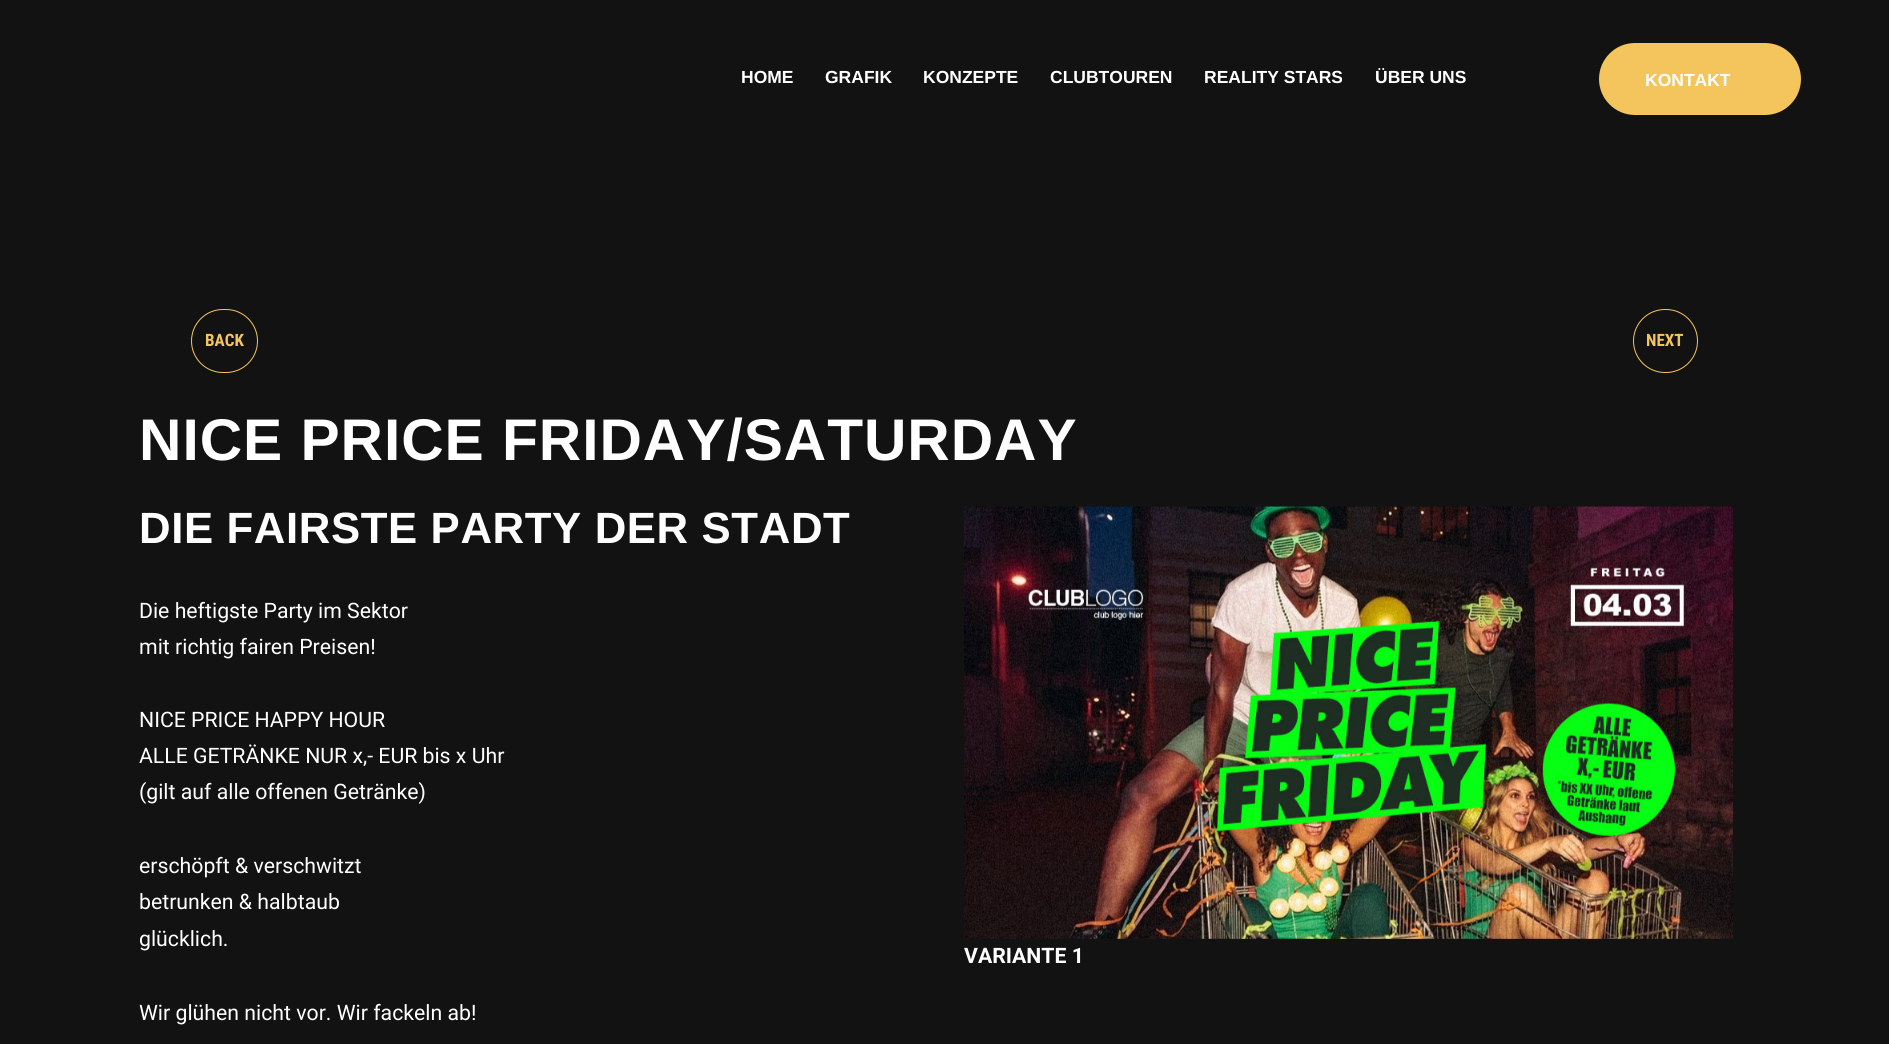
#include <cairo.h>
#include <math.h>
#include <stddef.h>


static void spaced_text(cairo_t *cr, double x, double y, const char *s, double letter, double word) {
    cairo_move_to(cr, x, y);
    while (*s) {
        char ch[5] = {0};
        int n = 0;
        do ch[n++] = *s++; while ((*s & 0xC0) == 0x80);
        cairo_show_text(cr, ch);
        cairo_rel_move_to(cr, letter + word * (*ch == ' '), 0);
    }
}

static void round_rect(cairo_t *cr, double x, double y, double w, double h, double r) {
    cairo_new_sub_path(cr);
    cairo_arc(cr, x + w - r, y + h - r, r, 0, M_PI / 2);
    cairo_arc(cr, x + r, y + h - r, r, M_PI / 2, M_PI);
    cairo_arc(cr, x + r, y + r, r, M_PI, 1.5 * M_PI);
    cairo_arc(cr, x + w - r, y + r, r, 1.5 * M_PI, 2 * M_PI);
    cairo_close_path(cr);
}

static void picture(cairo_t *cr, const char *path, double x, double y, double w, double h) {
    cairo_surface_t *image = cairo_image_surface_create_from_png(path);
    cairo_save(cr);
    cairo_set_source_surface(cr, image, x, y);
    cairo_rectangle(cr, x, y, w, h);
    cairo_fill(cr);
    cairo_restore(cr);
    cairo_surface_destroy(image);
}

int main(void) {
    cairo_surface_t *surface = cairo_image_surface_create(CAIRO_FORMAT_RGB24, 1889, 1044);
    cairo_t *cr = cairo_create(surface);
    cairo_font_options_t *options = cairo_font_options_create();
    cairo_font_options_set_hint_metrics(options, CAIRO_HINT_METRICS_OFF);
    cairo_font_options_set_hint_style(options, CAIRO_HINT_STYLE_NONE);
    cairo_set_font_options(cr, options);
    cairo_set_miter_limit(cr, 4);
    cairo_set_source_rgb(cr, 0.071, 0.071, 0.071);
    cairo_paint(cr);
    cairo_select_font_face(cr, "Liberation Sans", CAIRO_FONT_SLANT_NORMAL, CAIRO_FONT_WEIGHT_BOLD);
    cairo_set_font_size(cr, 17.5);
    cairo_set_source_rgb(cr, 1, 1, 1);
    cairo_move_to(cr, 741, 83);
    cairo_show_text(cr, "HOME");
    cairo_move_to(cr, 825, 83);
    cairo_show_text(cr, "GRAFIK");
    cairo_move_to(cr, 923, 83);
    cairo_show_text(cr, "KONZEPTE");
    cairo_move_to(cr, 1050, 83);
    cairo_show_text(cr, "CLUBTOUREN");
    cairo_move_to(cr, 1204, 83);
    cairo_show_text(cr, "REALITY STARS");
    cairo_move_to(cr, 1375, 83);
    cairo_show_text(cr, "ÜBER UNS");
    cairo_set_source_rgb(cr, 0.957, 0.773, 0.361);
    round_rect(cr, 1599, 43, 202, 72, 36);
    cairo_fill(cr);
    cairo_set_source_rgb(cr, 1, 1, 1);
    cairo_move_to(cr, 1645, 86);
    cairo_show_text(cr, "KONTAKT");
    round_rect(cr, 191.5, 309.5, 66, 63, 31.5);
    cairo_set_source_rgb(cr, 0.957, 0.773, 0.361);
    cairo_set_line_width(cr, 1);
    cairo_stroke(cr);
    cairo_select_font_face(cr, "Roboto Condensed", CAIRO_FONT_SLANT_NORMAL, CAIRO_FONT_WEIGHT_BOLD);
    cairo_set_font_size(cr, 17);
    cairo_move_to(cr, 205, 346);
    cairo_show_text(cr, "BACK");
    round_rect(cr, 1633.5, 309.5, 64, 63, 31.5);
    cairo_stroke(cr);
    cairo_move_to(cr, 1646, 346);
    cairo_show_text(cr, "NEXT");
    cairo_select_font_face(cr, "Liberation Sans", CAIRO_FONT_SLANT_NORMAL, CAIRO_FONT_WEIGHT_BOLD);
    cairo_set_font_size(cr, 58.75);
    cairo_set_source_rgb(cr, 1, 1, 1);
    spaced_text(cr, 139, 460, "NICE PRICE FRIDAY/SATURDAY", 0.95, 0);
    cairo_set_font_size(cr, 43.75);
    spaced_text(cr, 139, 543, "DIE FAIRSTE PARTY DER STADT", 0.6, 0);
    cairo_select_font_face(cr, "Roboto", CAIRO_FONT_SLANT_NORMAL, CAIRO_FONT_WEIGHT_NORMAL);
    cairo_set_font_size(cr, 21.25);
    cairo_move_to(cr, 139, 618);
    cairo_show_text(cr, "Die heftigste Party im Sektor");
    cairo_move_to(cr, 139, 654);
    cairo_show_text(cr, "mit richtig fairen Preisen!");
    cairo_move_to(cr, 139, 727);
    cairo_show_text(cr, "NICE PRICE HAPPY HOUR");
    cairo_move_to(cr, 139, 763);
    cairo_show_text(cr, "ALLE GETRÄNKE NUR x,- EUR bis x Uhr");
    cairo_move_to(cr, 139, 799);
    cairo_show_text(cr, "(gilt auf alle offenen Getränke)");
    cairo_move_to(cr, 139, 873);
    cairo_show_text(cr, "erschöpft & verschwitzt");
    cairo_move_to(cr, 139, 909);
    cairo_show_text(cr, "betrunken & halbtaub");
    cairo_move_to(cr, 139, 946);
    cairo_show_text(cr, "glücklich.");
    cairo_move_to(cr, 139, 1020);
    cairo_show_text(cr, "Wir glühen nicht vor. Wir fackeln ab!");
    picture(cr, "img1.png", 964, 506, 769, 433);
    cairo_select_font_face(cr, "Roboto", CAIRO_FONT_SLANT_NORMAL, CAIRO_FONT_WEIGHT_BOLD);
    cairo_move_to(cr, 964, 963);
    cairo_show_text(cr, "VARIANTE 1");
    cairo_surface_write_to_png(surface, "page.png");
    cairo_font_options_destroy(options);
    cairo_destroy(cr);
    cairo_surface_destroy(surface);
    return 0;
}
